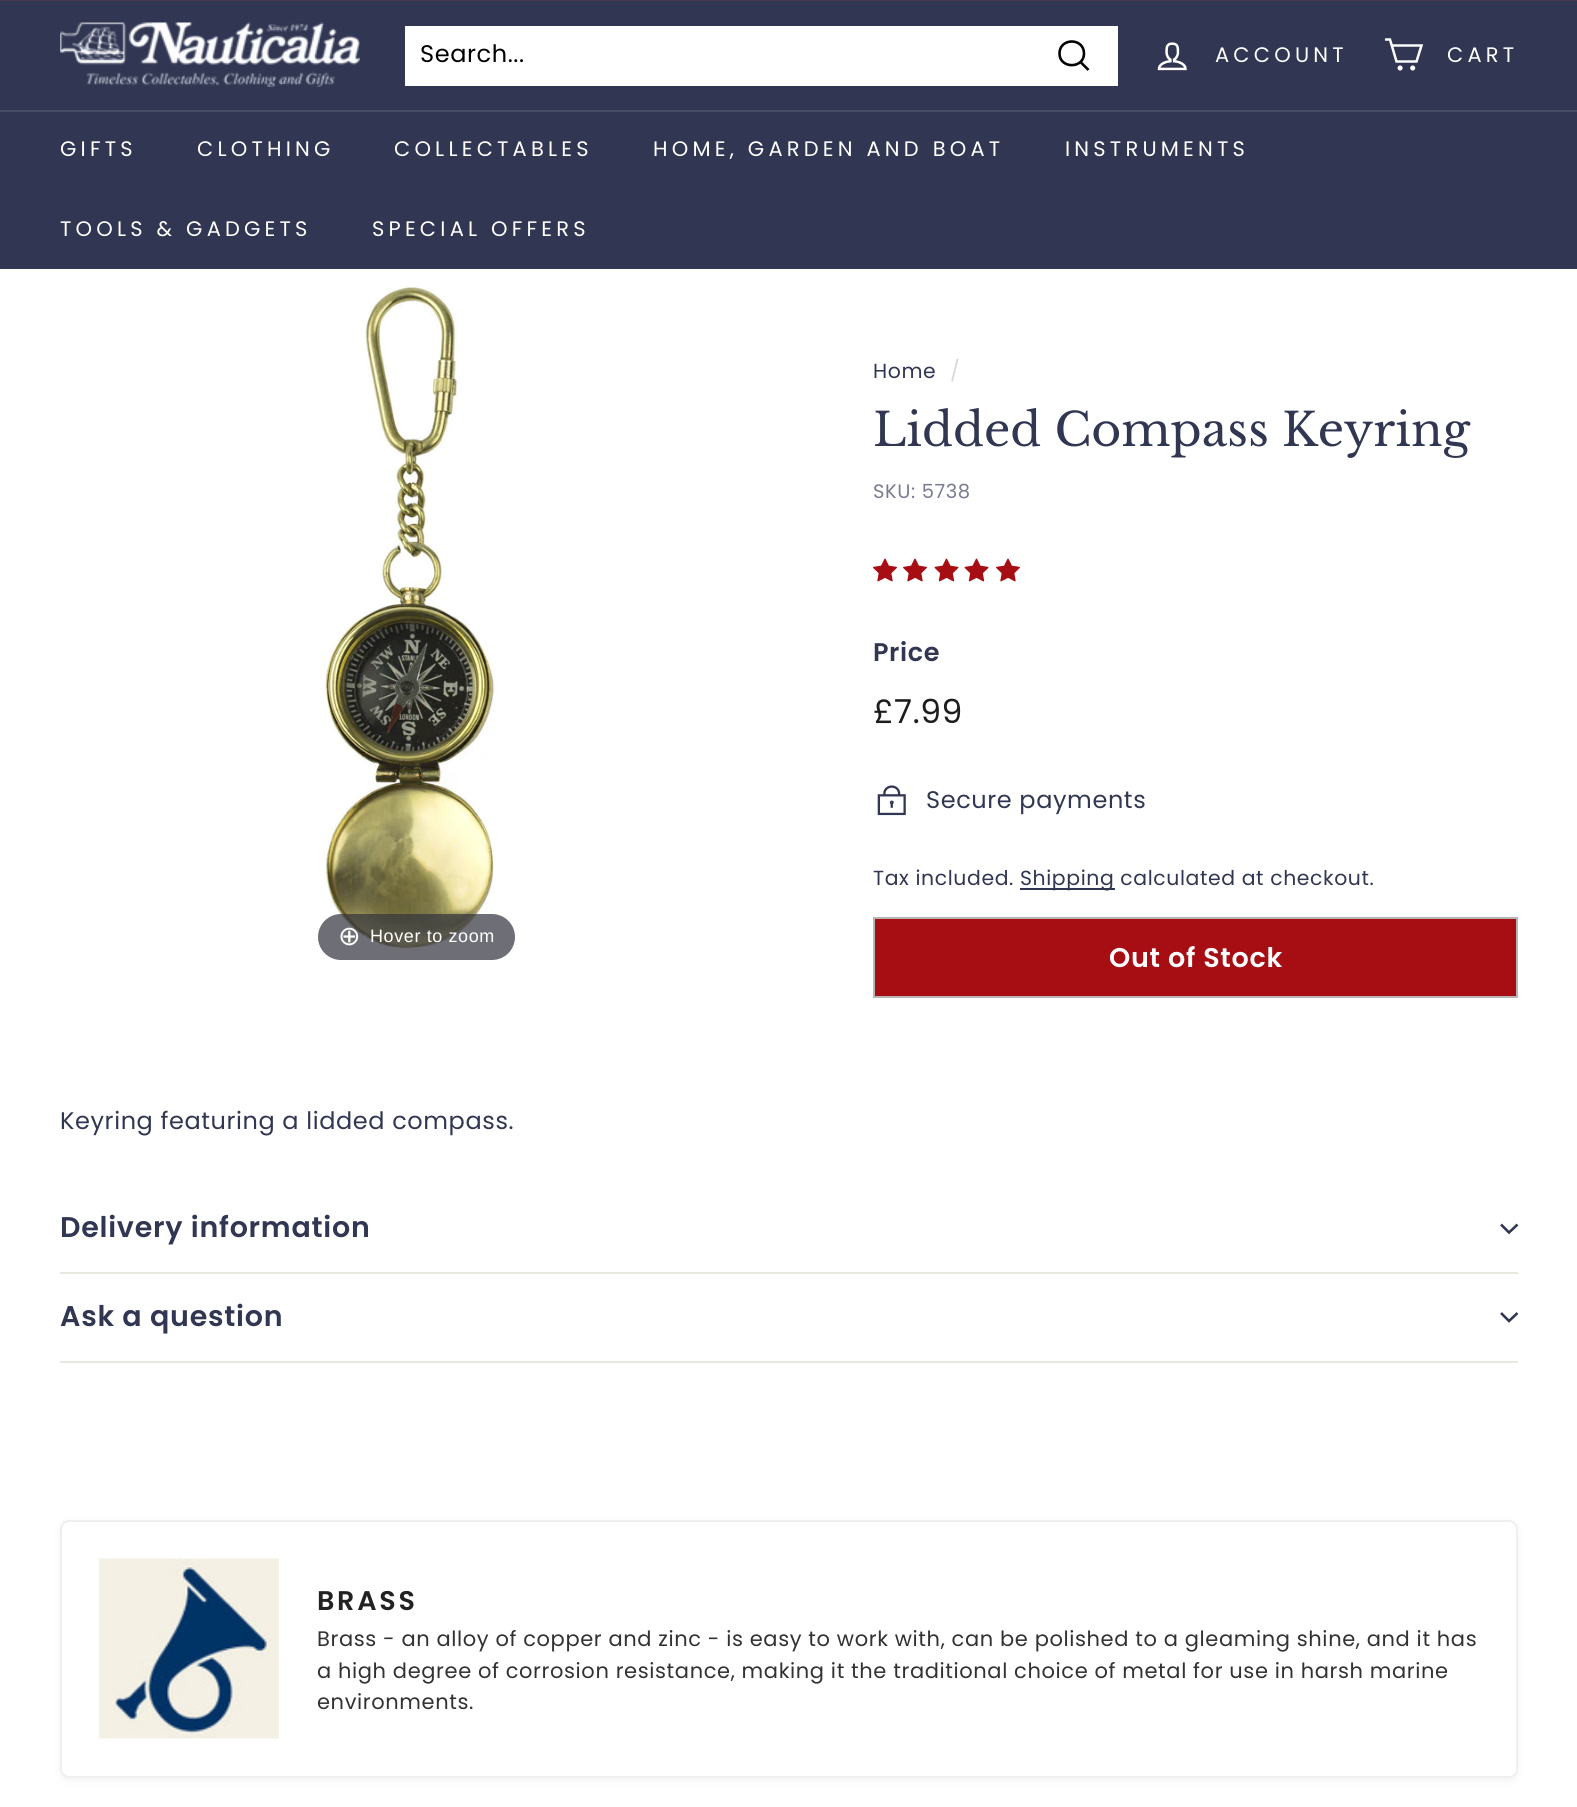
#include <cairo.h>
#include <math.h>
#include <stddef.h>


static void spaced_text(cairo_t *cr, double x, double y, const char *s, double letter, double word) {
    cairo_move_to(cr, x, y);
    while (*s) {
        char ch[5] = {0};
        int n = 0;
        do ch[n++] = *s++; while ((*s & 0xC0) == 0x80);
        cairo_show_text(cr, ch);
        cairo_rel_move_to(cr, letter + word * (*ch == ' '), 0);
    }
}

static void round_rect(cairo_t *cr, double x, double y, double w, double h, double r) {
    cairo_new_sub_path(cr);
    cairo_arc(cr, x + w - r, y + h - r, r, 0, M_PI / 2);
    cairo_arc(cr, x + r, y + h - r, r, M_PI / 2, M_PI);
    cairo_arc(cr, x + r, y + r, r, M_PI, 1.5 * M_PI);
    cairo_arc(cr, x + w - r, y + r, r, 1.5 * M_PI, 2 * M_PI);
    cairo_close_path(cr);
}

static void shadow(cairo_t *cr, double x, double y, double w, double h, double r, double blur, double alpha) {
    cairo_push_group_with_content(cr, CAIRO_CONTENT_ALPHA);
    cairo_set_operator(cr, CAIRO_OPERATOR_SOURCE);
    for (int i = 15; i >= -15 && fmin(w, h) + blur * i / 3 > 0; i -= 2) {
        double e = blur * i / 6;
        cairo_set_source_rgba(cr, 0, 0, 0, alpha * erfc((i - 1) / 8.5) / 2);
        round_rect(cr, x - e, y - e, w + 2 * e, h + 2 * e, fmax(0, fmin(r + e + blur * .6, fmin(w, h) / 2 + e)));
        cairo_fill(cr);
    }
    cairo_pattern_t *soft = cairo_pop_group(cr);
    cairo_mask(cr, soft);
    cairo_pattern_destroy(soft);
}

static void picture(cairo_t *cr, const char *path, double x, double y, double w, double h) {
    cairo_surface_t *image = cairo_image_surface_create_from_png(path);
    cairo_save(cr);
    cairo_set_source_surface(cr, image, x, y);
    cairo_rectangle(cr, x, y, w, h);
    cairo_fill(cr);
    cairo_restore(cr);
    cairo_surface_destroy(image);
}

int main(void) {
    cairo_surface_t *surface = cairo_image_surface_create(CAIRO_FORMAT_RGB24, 1577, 1807);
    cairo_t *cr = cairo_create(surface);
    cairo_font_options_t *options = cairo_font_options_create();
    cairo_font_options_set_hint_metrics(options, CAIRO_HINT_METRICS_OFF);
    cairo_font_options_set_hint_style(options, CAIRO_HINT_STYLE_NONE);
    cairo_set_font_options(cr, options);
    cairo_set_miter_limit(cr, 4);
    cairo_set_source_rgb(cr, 1, 1, 1);
    cairo_paint(cr);
    cairo_set_source_rgb(cr, 0.275, 0.22, 0.314);
    cairo_rectangle(cr, 0, 0, 1577, 1);
    cairo_fill(cr);
    cairo_set_source_rgb(cr, 0.192, 0.212, 0.322);
    cairo_rectangle(cr, 0, 1, 1577, 109);
    cairo_fill(cr);
    picture(cr, "img1.png", 60, 22, 300, 65);
    cairo_set_source_rgb(cr, 1, 1, 1);
    cairo_rectangle(cr, 405, 26, 713, 60);
    cairo_fill(cr);
    cairo_select_font_face(cr, "Poppins", CAIRO_FONT_SLANT_NORMAL, CAIRO_FONT_WEIGHT_NORMAL);
    cairo_set_font_size(cr, 24);
    cairo_set_source_rgb(cr, 0, 0, 0);
    spaced_text(cr, 420, 62, "Search...", 0.6, 0);
    cairo_new_path(cr);
    cairo_move_to(cr, 1084, 53.5);
    cairo_curve_to(cr, 1084, 69, 1059.5, 69, 1059.5, 53.5);
    cairo_curve_to(cr, 1059.5, 37.5, 1084, 37.5, 1084, 53.5);
    cairo_close_path(cr);
    cairo_move_to(cr, 1088.5, 70);
    cairo_line_to(cr, 1080.5, 62);
    cairo_set_line_width(cr, 2.6);
    cairo_stroke(cr);
    picture(cr, "img2.png", 1157, 42, 30, 29);
    cairo_set_font_size(cr, 21);
    cairo_set_source_rgb(cr, 1, 1, 1);
    spaced_text(cr, 1215, 62, "ACCOUNT", 4.2, 0);
    cairo_new_path(cr);
    cairo_move_to(cr, 1392, 45.5);
    cairo_line_to(cr, 1421.5, 45.5);
    cairo_line_to(cr, 1416.5, 61.5);
    cairo_line_to(cr, 1396.5, 61.5);
    cairo_line_to(cr, 1390, 39.5);
    cairo_line_to(cr, 1385, 39.5);
    cairo_set_line_width(cr, 2.5);
    cairo_stroke(cr);
    cairo_arc(cr, 1400.1, 68, 1.3, 0, 2 * M_PI);
    cairo_stroke(cr);
    cairo_arc(cr, 1412.7, 68, 1.3, 0, 2 * M_PI);
    cairo_stroke(cr);
    spaced_text(cr, 1447, 62, "CART", 4.2, 0);
    cairo_set_source_rgb(cr, 0.192, 0.212, 0.322);
    cairo_rectangle(cr, 0, 112, 1577, 157);
    cairo_fill(cr);
    cairo_set_source_rgb(cr, 0.275, 0.29, 0.388);
    cairo_rectangle(cr, 0, 110, 1577, 2);
    cairo_fill(cr);
    cairo_set_source_rgb(cr, 1, 1, 1);
    spaced_text(cr, 60, 156, "GIFTS", 4.2, 0);
    spaced_text(cr, 197, 156, "CLOTHING", 4.2, 0);
    spaced_text(cr, 394, 156, "COLLECTABLES", 4.2, 0);
    spaced_text(cr, 653, 156, "HOME, GARDEN AND BOAT", 4.2, 0);
    spaced_text(cr, 1065, 156, "INSTRUMENTS", 4.2, 0);
    spaced_text(cr, 60, 236, "TOOLS & GADGETS", 4.2, 0);
    spaced_text(cr, 372, 236, "SPECIAL OFFERS", 4.2, 0);
    picture(cr, "img3.png", 324, 286, 171, 665);
    cairo_set_source_rgba(cr, 0.192, 0.2, 0.239, 0.7);
    round_rect(cr, 318, 914, 197, 46, 23);
    cairo_fill(cr);
    cairo_select_font_face(cr, "DejaVu Sans", CAIRO_FONT_SLANT_NORMAL, CAIRO_FONT_WEIGHT_NORMAL);
    cairo_set_font_size(cr, 27);
    cairo_set_source_rgb(cr, 1, 1, 1);
    spaced_text(cr, 338, 945, "⊕", 0.6, 0);
    cairo_select_font_face(cr, "Liberation Sans", CAIRO_FONT_SLANT_NORMAL, CAIRO_FONT_WEIGHT_NORMAL);
    cairo_set_font_size(cr, 18);
    spaced_text(cr, 370, 942, "Hover to zoom", 0.6, 0);
    cairo_select_font_face(cr, "Poppins", CAIRO_FONT_SLANT_NORMAL, CAIRO_FONT_WEIGHT_NORMAL);
    cairo_set_font_size(cr, 20.4);
    cairo_set_source_rgb(cr, 0.192, 0.212, 0.322);
    spaced_text(cr, 873, 378, "Home", 0.6, 0);
    cairo_set_source_rgb(cr, 0.839, 0.843, 0.863);
    spaced_text(cr, 950, 378, "/", 0.6, 0);
    cairo_select_font_face(cr, "Libre Baskerville", CAIRO_FONT_SLANT_NORMAL, CAIRO_FONT_WEIGHT_NORMAL);
    cairo_set_font_size(cr, 45.9);
    cairo_set_source_rgb(cr, 0.192, 0.212, 0.322);
    cairo_move_to(cr, 873, 446);
    cairo_show_text(cr, "Lidded Compass Keyring");
    cairo_select_font_face(cr, "Poppins", CAIRO_FONT_SLANT_NORMAL, CAIRO_FONT_WEIGHT_NORMAL);
    cairo_set_font_size(cr, 19.5);
    cairo_set_source_rgb(cr, 0.475, 0.486, 0.561);
    spaced_text(cr, 873, 498, "SKU: 5738", 0.6, 0);
    picture(cr, "img4.png", 873, 558, 24, 24);
    picture(cr, "img4.png", 903, 558, 24, 24);
    picture(cr, "img5.png", 934, 558, 25, 24);
    picture(cr, "img5.png", 964, 558, 25, 24);
    picture(cr, "img4.png", 996, 558, 24, 24);
    cairo_select_font_face(cr, "Poppins SemiBold", CAIRO_FONT_SLANT_NORMAL, CAIRO_FONT_WEIGHT_NORMAL);
    cairo_set_font_size(cr, 25.5);
    cairo_set_source_rgb(cr, 0.192, 0.212, 0.322);
    spaced_text(cr, 873, 661, "Price", 0.6, 0);
    cairo_select_font_face(cr, "Poppins", CAIRO_FONT_SLANT_NORMAL, CAIRO_FONT_WEIGHT_NORMAL);
    cairo_set_font_size(cr, 33);
    cairo_set_source_rgb(cr, 0.11, 0.114, 0.114);
    spaced_text(cr, 873, 723, "£7.99", 0.6, 0);
    picture(cr, "img6.png", 877, 785, 29, 31);
    cairo_set_font_size(cr, 24);
    cairo_set_source_rgb(cr, 0.192, 0.212, 0.322);
    spaced_text(cr, 926, 808, "Secure payments", 0.6, 0);
    cairo_set_font_size(cr, 20.4);
    spaced_text(cr, 873, 885, "Tax included.", 0.6, 0);
    cairo_rectangle(cr, 1020, 888, 95, 2);
    cairo_fill(cr);
    spaced_text(cr, 1020, 885, "Shipping calculated at checkout.", 0.6, 0);
    cairo_set_source_rgb(cr, 0.655, 0.055, 0.075);
    cairo_rectangle(cr, 874, 918, 643, 79);
    cairo_fill_preserve(cr);
    cairo_set_source_rgb(cr, 0.714, 0.714, 0.714);
    cairo_set_line_width(cr, 2);
    cairo_stroke(cr);
    cairo_select_font_face(cr, "Poppins SemiBold", CAIRO_FONT_SLANT_NORMAL, CAIRO_FONT_WEIGHT_NORMAL);
    cairo_set_font_size(cr, 27);
    cairo_set_source_rgb(cr, 1, 1, 1);
    spaced_text(cr, 1109, 967, "Out of Stock", 0.75, 0);
    cairo_select_font_face(cr, "Poppins", CAIRO_FONT_SLANT_NORMAL, CAIRO_FONT_WEIGHT_NORMAL);
    cairo_set_font_size(cr, 24);
    cairo_set_source_rgb(cr, 0.192, 0.212, 0.322);
    spaced_text(cr, 60, 1129, "Keyring featuring a lidded compass.", 0.6, 0);
    cairo_set_source_rgb(cr, 0.91, 0.91, 0.882);
    cairo_rectangle(cr, 60, 1272, 1458, 2);
    cairo_fill(cr);
    cairo_select_font_face(cr, "Poppins SemiBold", CAIRO_FONT_SLANT_NORMAL, CAIRO_FONT_WEIGHT_NORMAL);
    cairo_set_font_size(cr, 28.5);
    cairo_set_source_rgb(cr, 0.192, 0.212, 0.322);
    spaced_text(cr, 60, 1237, "Delivery information", 0.75, 0);
    cairo_new_path(cr);
    cairo_move_to(cr, 1501, 1224.5);
    cairo_line_to(cr, 1509, 1232.5);
    cairo_line_to(cr, 1517.5, 1224.5);
    cairo_set_line_width(cr, 2.6);
    cairo_stroke(cr);
    cairo_set_source_rgb(cr, 0.91, 0.91, 0.882);
    cairo_rectangle(cr, 60, 1361, 1458, 2);
    cairo_fill(cr);
    cairo_set_source_rgb(cr, 0.192, 0.212, 0.322);
    spaced_text(cr, 60, 1326, "Ask a question", 0.75, 0);
    cairo_new_path(cr);
    cairo_move_to(cr, 1501, 1313);
    cairo_line_to(cr, 1509, 1321);
    cairo_line_to(cr, 1517.5, 1313);
    cairo_stroke(cr);
    cairo_set_source_rgb(cr, 0, 0, 0);
    shadow(cr, 60, 1523, 1458, 258, 9, 4.5, 0.05);
    cairo_set_source_rgb(cr, 1, 1, 1);
    round_rect(cr, 61, 1521, 1456, 256, 8);
    cairo_fill_preserve(cr);
    cairo_set_source_rgb(cr, 0.937, 0.937, 0.937);
    cairo_set_line_width(cr, 2);
    cairo_stroke(cr);
    picture(cr, "img7.png", 99, 1558, 180, 181);
    cairo_set_font_size(cr, 27);
    cairo_set_source_rgb(cr, 0.133, 0.133, 0.133);
    spaced_text(cr, 317, 1610, "BRASS", 2.75, 0);
    cairo_select_font_face(cr, "Poppins", CAIRO_FONT_SLANT_NORMAL, CAIRO_FONT_WEIGHT_NORMAL);
    cairo_set_font_size(cr, 21);
    cairo_set_source_rgb(cr, 0.2, 0.196, 0.196);
    spaced_text(cr, 317, 1646, "Brass - an alloy of copper and zinc - is easy to work with, can be polished to a gleaming shine, and it has", 0.6, 0);
    spaced_text(cr, 317, 1678, "a high degree of corrosion resistance, making it the traditional choice of metal for use in harsh marine", 0.6, 0);
    spaced_text(cr, 317, 1709, "environments.", 0.6, 0);
    cairo_surface_write_to_png(surface, "page.png");
    cairo_font_options_destroy(options);
    cairo_destroy(cr);
    cairo_surface_destroy(surface);
    return 0;
}
